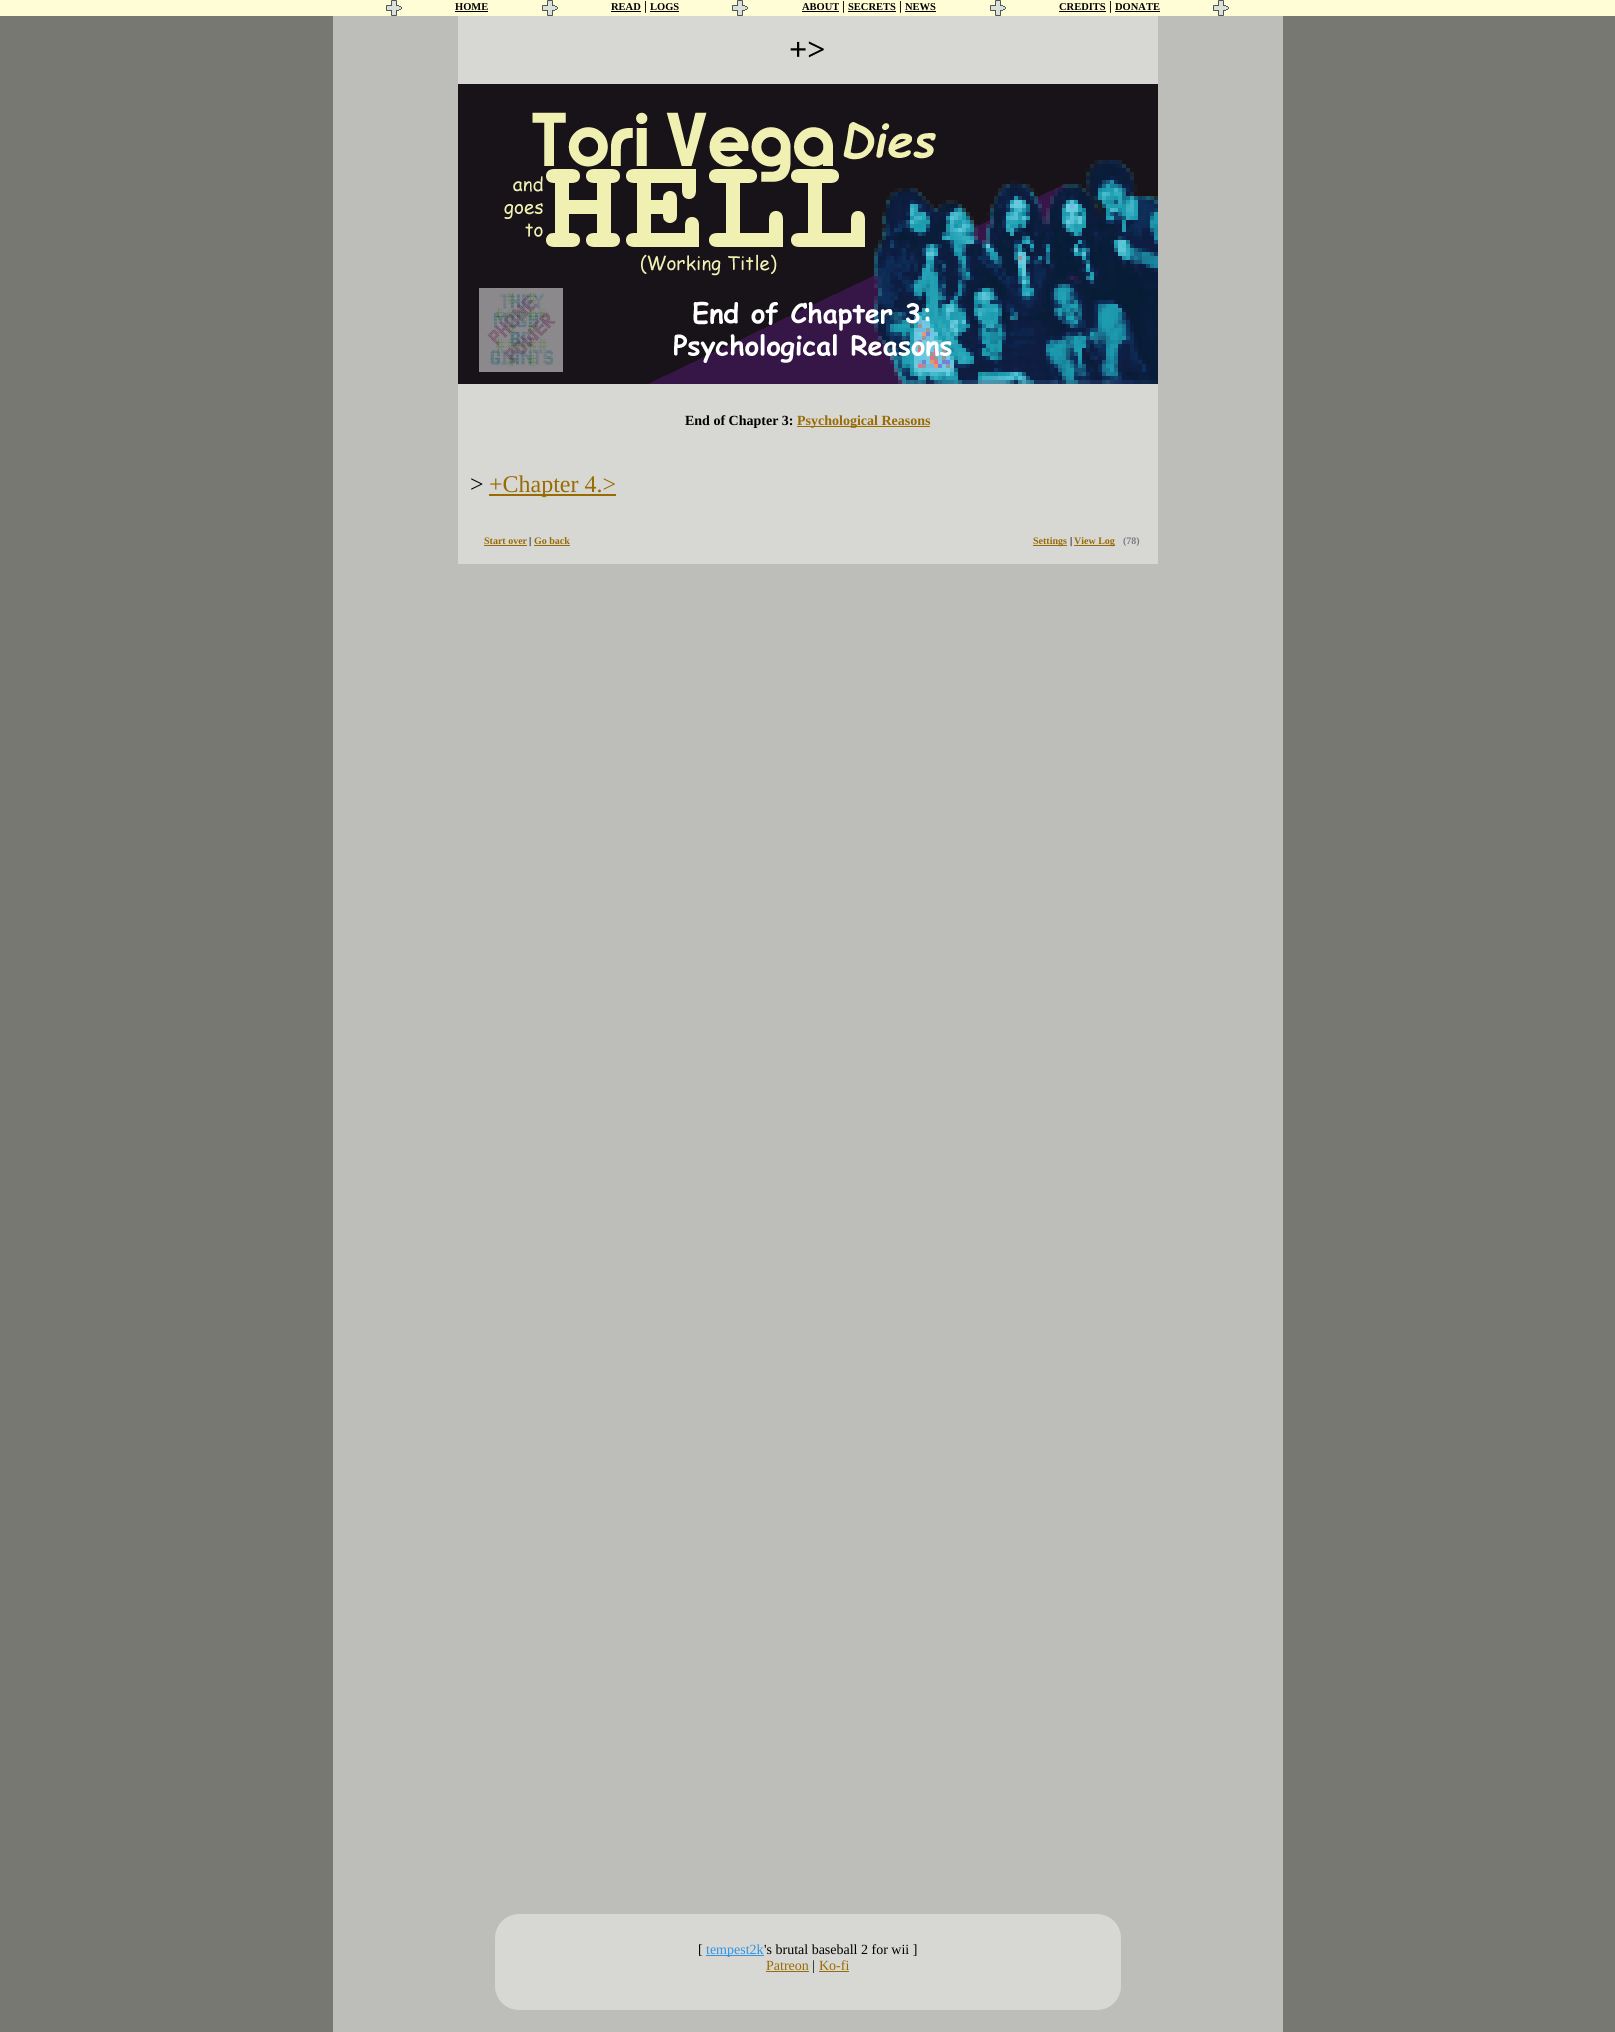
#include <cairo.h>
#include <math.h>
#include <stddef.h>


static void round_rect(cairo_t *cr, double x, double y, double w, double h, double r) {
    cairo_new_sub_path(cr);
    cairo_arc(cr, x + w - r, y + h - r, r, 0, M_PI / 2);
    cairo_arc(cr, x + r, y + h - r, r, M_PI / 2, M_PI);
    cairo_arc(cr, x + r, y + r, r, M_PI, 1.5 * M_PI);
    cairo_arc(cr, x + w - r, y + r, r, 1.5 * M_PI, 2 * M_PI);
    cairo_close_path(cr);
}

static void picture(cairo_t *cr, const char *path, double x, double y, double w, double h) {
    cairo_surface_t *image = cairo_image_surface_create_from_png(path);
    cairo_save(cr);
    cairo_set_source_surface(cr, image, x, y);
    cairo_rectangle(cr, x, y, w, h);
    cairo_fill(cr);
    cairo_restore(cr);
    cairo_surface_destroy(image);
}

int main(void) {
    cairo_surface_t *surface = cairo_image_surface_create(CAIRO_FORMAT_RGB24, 1615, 2032);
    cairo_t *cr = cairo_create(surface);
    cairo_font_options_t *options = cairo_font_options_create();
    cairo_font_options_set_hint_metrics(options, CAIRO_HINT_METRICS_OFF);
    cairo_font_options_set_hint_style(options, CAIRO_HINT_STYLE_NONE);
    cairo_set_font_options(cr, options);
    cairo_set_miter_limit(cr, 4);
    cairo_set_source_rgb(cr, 0.471, 0.471, 0.451);
    cairo_paint(cr);
    cairo_set_source_rgb(cr, 1, 0.992, 0.835);
    cairo_rectangle(cr, 0, 0, 1615, 16);
    cairo_fill(cr);
    picture(cr, "img1.png", 386, 0, 16, 16);
    cairo_select_font_face(cr, "Liberation Serif", CAIRO_FONT_SLANT_NORMAL, CAIRO_FONT_WEIGHT_BOLD);
    cairo_set_font_size(cr, 10.5);
    cairo_set_source_rgb(cr, 0, 0, 0);
    cairo_move_to(cr, 455, 10);
    cairo_show_text(cr, "HOME");
    cairo_rectangle(cr, 455, 11, 33, 1);
    cairo_fill(cr);
    picture(cr, "img2.png", 542, 0, 16, 16);
    cairo_move_to(cr, 611, 10);
    cairo_show_text(cr, "READ");
    cairo_rectangle(cr, 611, 11, 30, 1);
    cairo_fill(cr);
    cairo_set_font_size(cr, 13);
    cairo_move_to(cr, 644, 10);
    cairo_show_text(cr, "|");
    cairo_set_font_size(cr, 10.5);
    cairo_move_to(cr, 650, 10);
    cairo_show_text(cr, "LOGS");
    cairo_rectangle(cr, 650, 11, 29, 1);
    cairo_fill(cr);
    picture(cr, "img3.png", 732, 0, 16, 16);
    cairo_move_to(cr, 802, 10);
    cairo_show_text(cr, "ABOUT");
    cairo_rectangle(cr, 802, 11, 37, 1);
    cairo_fill(cr);
    cairo_set_font_size(cr, 13);
    cairo_move_to(cr, 842, 10);
    cairo_show_text(cr, "|");
    cairo_set_font_size(cr, 10.5);
    cairo_move_to(cr, 848, 10);
    cairo_show_text(cr, "SECRETS");
    cairo_rectangle(cr, 848, 11, 48, 1);
    cairo_fill(cr);
    cairo_set_font_size(cr, 13);
    cairo_move_to(cr, 899, 10);
    cairo_show_text(cr, "|");
    cairo_set_font_size(cr, 10.5);
    cairo_move_to(cr, 905, 10);
    cairo_show_text(cr, "NEWS");
    cairo_rectangle(cr, 905, 11, 31, 1);
    cairo_fill(cr);
    picture(cr, "img2.png", 990, 0, 16, 16);
    cairo_move_to(cr, 1059, 10);
    cairo_show_text(cr, "CREDITS");
    cairo_rectangle(cr, 1059, 11, 47, 1);
    cairo_fill(cr);
    cairo_set_font_size(cr, 13);
    cairo_move_to(cr, 1109, 10);
    cairo_show_text(cr, "|");
    cairo_set_font_size(cr, 10.5);
    cairo_move_to(cr, 1115, 10);
    cairo_show_text(cr, "DONATE");
    cairo_rectangle(cr, 1115, 11, 45, 1);
    cairo_fill(cr);
    picture(cr, "img3.png", 1213, 0, 16, 16);
    cairo_set_source_rgb(cr, 0.741, 0.741, 0.725);
    cairo_rectangle(cr, 333, 16, 950, 2016);
    cairo_fill(cr);
    cairo_set_source_rgb(cr, 0.843, 0.843, 0.831);
    cairo_rectangle(cr, 458, 16, 700, 548);
    cairo_fill(cr);
    cairo_set_font_size(cr, 32);
    cairo_set_source_rgb(cr, 0, 0, 0);
    cairo_move_to(cr, 789, 60);
    cairo_show_text(cr, "+>");
    picture(cr, "img4.png", 458, 84, 700, 300);
    cairo_set_font_size(cr, 14);
    cairo_move_to(cr, 685, 425);
    cairo_show_text(cr, "End of Chapter 3:");
    cairo_set_source_rgb(cr, 0.6, 0.42, 0.012);
    cairo_rectangle(cr, 797, 426, 133, 1);
    cairo_fill(cr);
    cairo_move_to(cr, 797, 425);
    cairo_show_text(cr, "Psychological Reasons");
    cairo_select_font_face(cr, "Liberation Serif", CAIRO_FONT_SLANT_NORMAL, CAIRO_FONT_WEIGHT_NORMAL);
    cairo_set_font_size(cr, 24);
    cairo_set_source_rgb(cr, 0, 0, 0);
    cairo_move_to(cr, 470, 492);
    cairo_show_text(cr, ">");
    cairo_set_source_rgb(cr, 0.6, 0.42, 0.012);
    cairo_rectangle(cr, 489, 494, 127, 2);
    cairo_fill(cr);
    cairo_move_to(cr, 489, 492);
    cairo_show_text(cr, "+Chapter 4.>");
    cairo_select_font_face(cr, "Liberation Serif", CAIRO_FONT_SLANT_NORMAL, CAIRO_FONT_WEIGHT_BOLD);
    cairo_set_font_size(cr, 10);
    cairo_move_to(cr, 484, 544);
    cairo_show_text(cr, "Start over");
    cairo_rectangle(cr, 484, 545, 43, 1);
    cairo_fill(cr);
    cairo_set_source_rgb(cr, 0, 0, 0);
    cairo_move_to(cr, 529, 544);
    cairo_show_text(cr, "|");
    cairo_set_source_rgb(cr, 0.6, 0.42, 0.012);
    cairo_move_to(cr, 534, 544);
    cairo_show_text(cr, "Go back");
    cairo_rectangle(cr, 534, 545, 36, 1);
    cairo_fill(cr);
    cairo_rectangle(cr, 1033, 545, 34, 1);
    cairo_fill(cr);
    cairo_move_to(cr, 1033, 544);
    cairo_show_text(cr, "Settings");
    cairo_set_source_rgb(cr, 0, 0, 0);
    cairo_move_to(cr, 1070, 544);
    cairo_show_text(cr, "|");
    cairo_set_source_rgb(cr, 0.6, 0.42, 0.012);
    cairo_rectangle(cr, 1074, 545, 41, 1);
    cairo_fill(cr);
    cairo_move_to(cr, 1074, 544);
    cairo_show_text(cr, "View Log");
    cairo_set_source_rgb(cr, 0.475, 0.486, 0.502);
    cairo_move_to(cr, 1123, 544);
    cairo_show_text(cr, "(78)");
    cairo_set_source_rgb(cr, 0.843, 0.843, 0.831);
    round_rect(cr, 495, 1914, 626, 96, 24);
    cairo_fill(cr);
    cairo_select_font_face(cr, "Liberation Serif", CAIRO_FONT_SLANT_NORMAL, CAIRO_FONT_WEIGHT_NORMAL);
    cairo_set_font_size(cr, 14);
    cairo_set_source_rgb(cr, 0, 0, 0);
    cairo_move_to(cr, 698, 1954);
    cairo_show_text(cr, "[");
    cairo_set_source_rgb(cr, 0.176, 0.58, 0.906);
    cairo_rectangle(cr, 706, 1955, 58, 1);
    cairo_fill(cr);
    cairo_move_to(cr, 706, 1954);
    cairo_show_text(cr, "tempest2k");
    cairo_set_source_rgb(cr, 0, 0, 0);
    cairo_move_to(cr, 764, 1954);
    cairo_show_text(cr, "'s brutal baseball 2 for wii ]");
    cairo_set_source_rgb(cr, 0.6, 0.42, 0.012);
    cairo_move_to(cr, 766, 1970);
    cairo_show_text(cr, "Patreon");
    cairo_rectangle(cr, 766, 1971, 43, 1);
    cairo_fill(cr);
    cairo_set_source_rgb(cr, 0, 0, 0);
    cairo_move_to(cr, 812, 1970);
    cairo_show_text(cr, "|");
    cairo_set_source_rgb(cr, 0.6, 0.42, 0.012);
    cairo_move_to(cr, 819, 1970);
    cairo_show_text(cr, "Ko-fi");
    cairo_rectangle(cr, 819, 1971, 30, 1);
    cairo_fill(cr);
    cairo_surface_write_to_png(surface, "page.png");
    cairo_font_options_destroy(options);
    cairo_destroy(cr);
    cairo_surface_destroy(surface);
    return 0;
}
